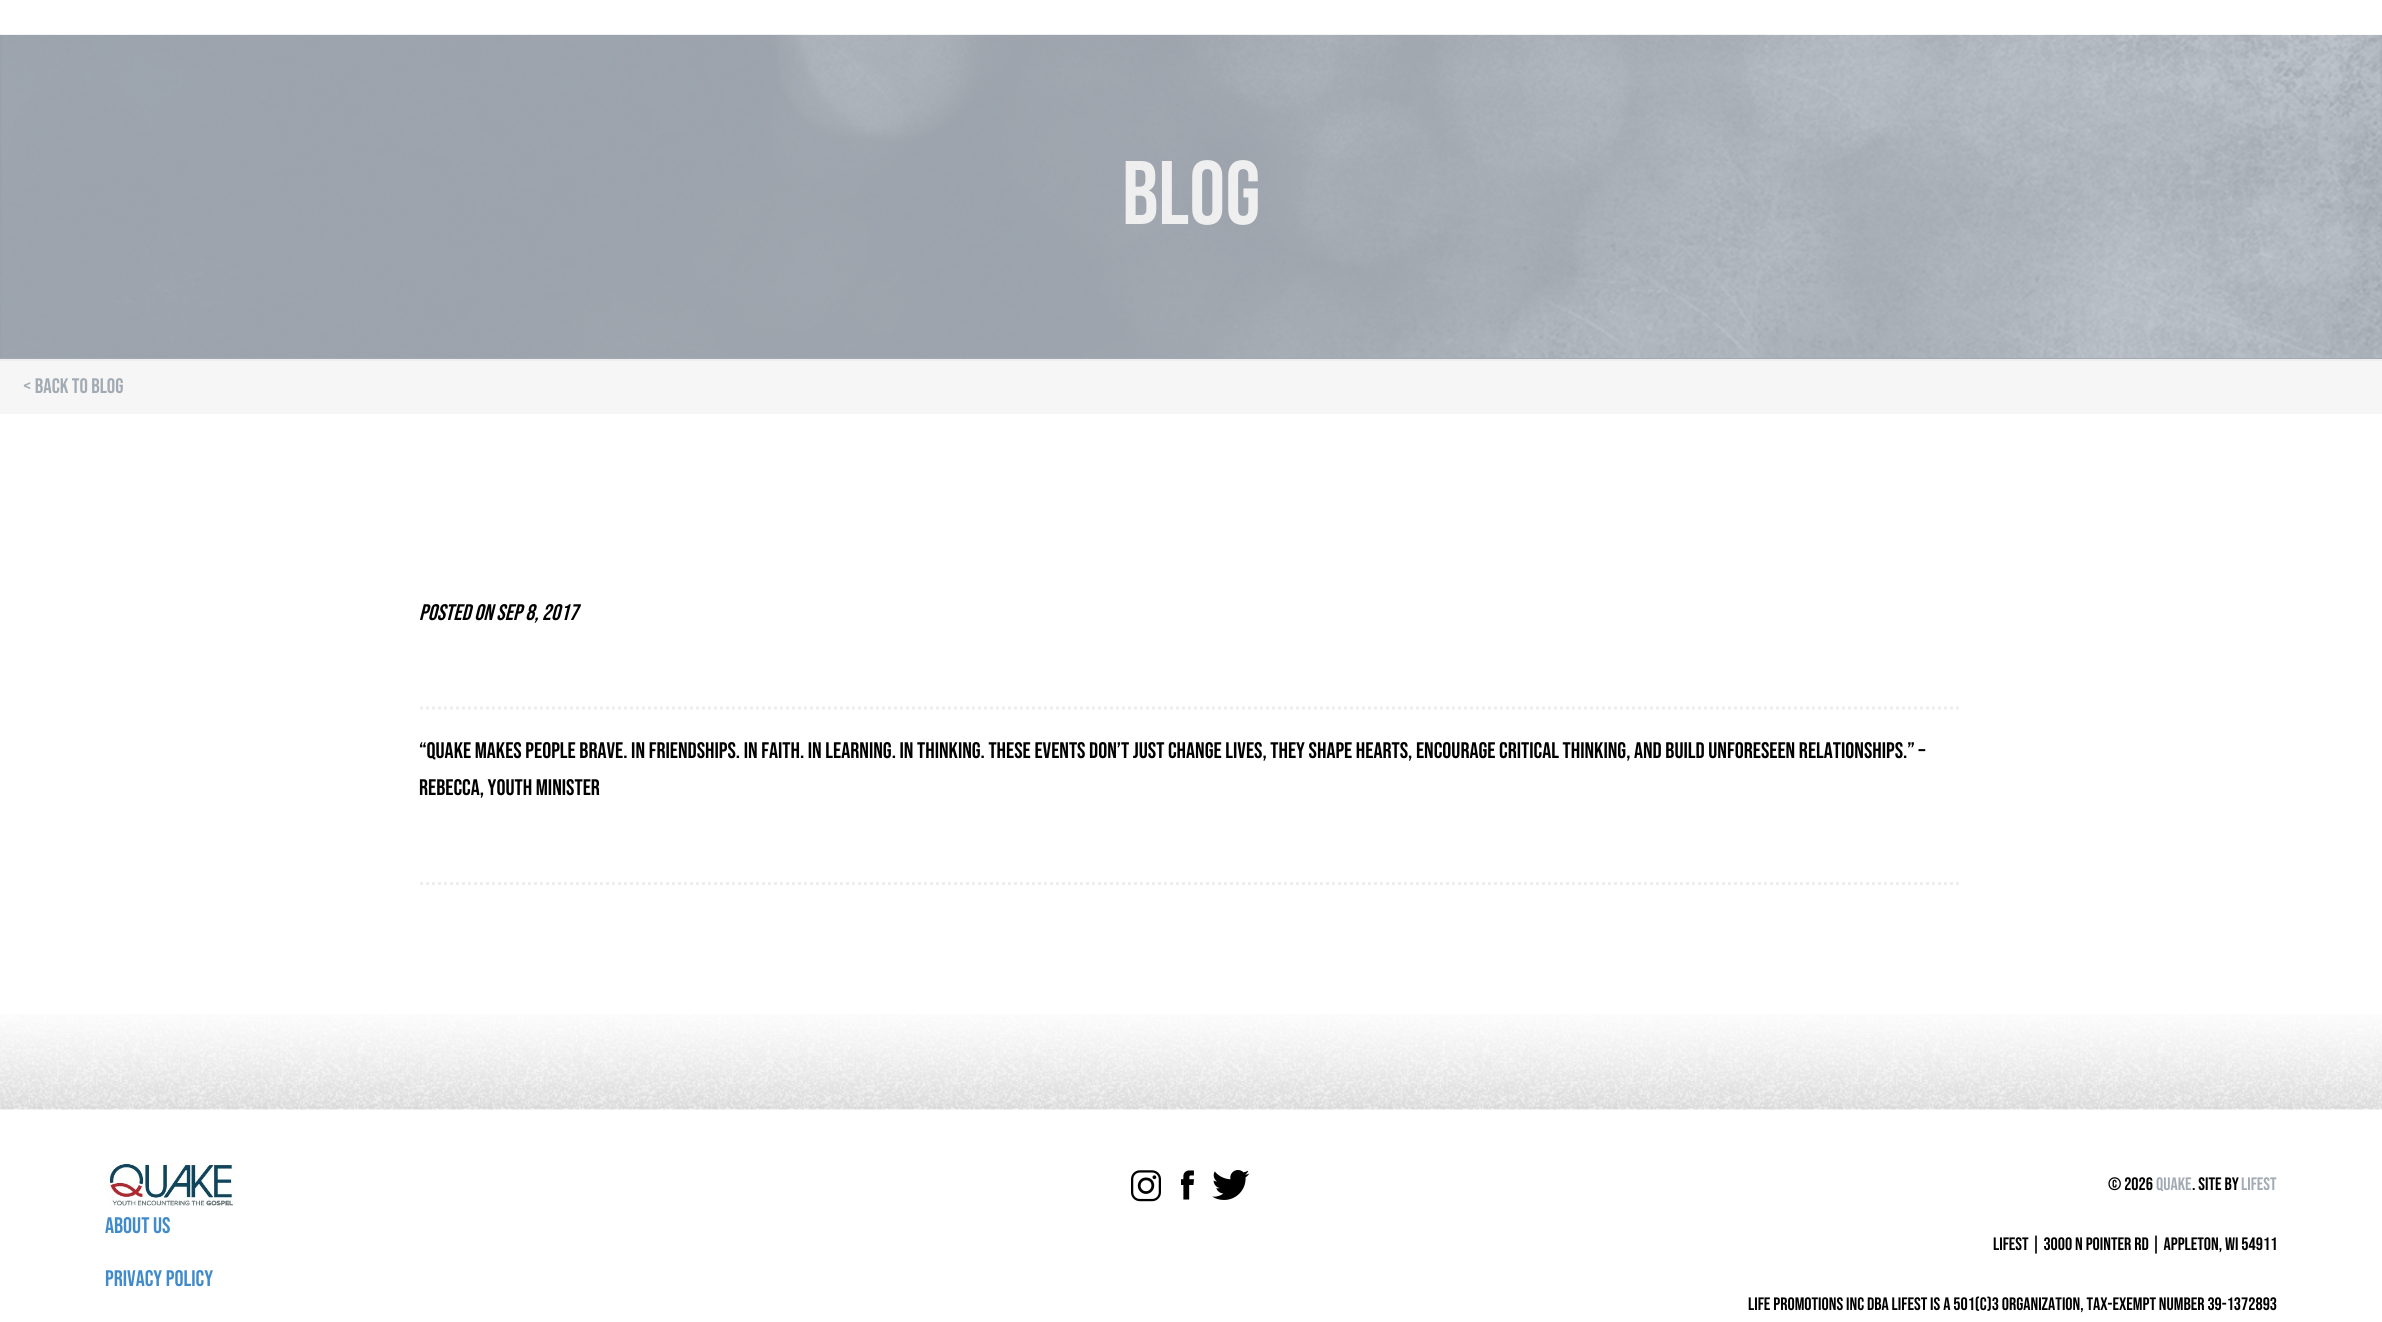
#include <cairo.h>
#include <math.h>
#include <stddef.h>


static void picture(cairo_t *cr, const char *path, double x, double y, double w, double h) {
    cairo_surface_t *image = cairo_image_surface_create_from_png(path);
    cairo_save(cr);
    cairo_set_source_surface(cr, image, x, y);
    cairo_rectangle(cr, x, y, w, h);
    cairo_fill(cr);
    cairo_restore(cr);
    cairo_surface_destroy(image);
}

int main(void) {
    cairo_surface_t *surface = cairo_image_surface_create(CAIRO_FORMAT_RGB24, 2382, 1322);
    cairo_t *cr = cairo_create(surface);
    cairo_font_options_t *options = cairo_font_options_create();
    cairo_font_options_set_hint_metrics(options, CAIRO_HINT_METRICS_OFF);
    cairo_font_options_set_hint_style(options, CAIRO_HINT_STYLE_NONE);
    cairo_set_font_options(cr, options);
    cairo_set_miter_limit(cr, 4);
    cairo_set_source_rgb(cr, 1, 1, 1);
    cairo_paint(cr);
    cairo_set_source_rgb(cr, 0.635, 0.667, 0.706);
    cairo_rectangle(cr, 0, 35, 2382, 324);
    cairo_fill(cr);
    cairo_set_source_rgb(cr, 0.933, 0.933, 0.933);
    cairo_rectangle(cr, 0, 359, 2382, 2);
    cairo_fill(cr);
    cairo_select_font_face(cr, "Bebas Neue", CAIRO_FONT_SLANT_NORMAL, CAIRO_FONT_WEIGHT_NORMAL);
    cairo_set_font_size(cr, 90);
    cairo_set_source_rgb(cr, 1, 1, 1);
    cairo_move_to(cr, 1122, 224);
    cairo_show_text(cr, "BLOG");
    picture(cr, "img1.png", 0, 34, 2382, 324);
    cairo_set_source_rgb(cr, 0.961, 0.961, 0.961);
    cairo_rectangle(cr, 0, 361, 2382, 53);
    cairo_fill(cr);
    cairo_set_font_size(cr, 21);
    cairo_set_source_rgb(cr, 0.635, 0.667, 0.706);
    cairo_move_to(cr, 23, 393);
    cairo_show_text(cr, "< Back to Blog");
    picture(cr, "img2.png", 0, 1014, 2382, 96);
    cairo_new_path(cr);
    cairo_move_to(cr, 420, 708);
    cairo_line_to(cr, 1962, 708);
    cairo_set_source_rgb(cr, 0.933, 0.933, 0.933);
    cairo_set_line_width(cr, 3);
    cairo_set_dash(cr, (double[]){3, 3}, 2, 0);
    cairo_stroke(cr);
    cairo_select_font_face(cr, "Bebas Neue", CAIRO_FONT_SLANT_ITALIC, CAIRO_FONT_WEIGHT_NORMAL);
    cairo_set_font_size(cr, 22.5);
    cairo_set_source_rgb(cr, 0, 0, 0);
    cairo_move_to(cr, 419, 620);
    cairo_show_text(cr, "Posted on Sep 8, 2017");
    cairo_new_path(cr);
    cairo_move_to(cr, 420, 883.5);
    cairo_line_to(cr, 1962, 883.5);
    cairo_set_source_rgb(cr, 0.933, 0.933, 0.933);
    cairo_stroke(cr);
    cairo_select_font_face(cr, "Bebas Neue", CAIRO_FONT_SLANT_NORMAL, CAIRO_FONT_WEIGHT_NORMAL);
    cairo_set_source_rgb(cr, 0, 0, 0);
    cairo_move_to(cr, 419, 758);
    cairo_show_text(cr, "“Quake makes people brave. In friendships. In faith. In learning. In thinking. These events don’t just change lives, they shape hearts, encourage critical thinking, and build unforeseen relationships.” –");
    cairo_move_to(cr, 419, 795);
    cairo_show_text(cr, "Rebecca, Youth Minister");
    picture(cr, "img3.png", 105, 1162, 130, 44);
    cairo_set_source_rgb(cr, 0.259, 0.545, 0.792);
    cairo_move_to(cr, 105, 1233);
    cairo_show_text(cr, "About Us");
    cairo_move_to(cr, 105, 1286);
    cairo_show_text(cr, "Privacy Policy");
    picture(cr, "img4.png", 1131, 1170, 30, 32);
    picture(cr, "img5.png", 1181, 1170, 13, 30);
    picture(cr, "img6.png", 1212, 1170, 38, 30);
    cairo_set_font_size(cr, 18);
    cairo_set_source_rgb(cr, 0, 0, 0);
    cairo_move_to(cr, 2108, 1190);
    cairo_show_text(cr, "© 2026");
    cairo_set_source_rgb(cr, 0.635, 0.667, 0.706);
    cairo_move_to(cr, 2156, 1190);
    cairo_show_text(cr, "Quake");
    cairo_set_source_rgb(cr, 0, 0, 0);
    cairo_move_to(cr, 2192, 1190);
    cairo_show_text(cr, ". Site by");
    cairo_set_source_rgb(cr, 0.635, 0.667, 0.706);
    cairo_move_to(cr, 2241, 1190);
    cairo_show_text(cr, "Lifest");
    cairo_set_source_rgb(cr, 0, 0, 0);
    cairo_move_to(cr, 1993, 1250);
    cairo_show_text(cr, "Lifest | 3000 N Pointer Rd | Appleton, WI 54911");
    cairo_move_to(cr, 1748, 1310);
    cairo_show_text(cr, "Life Promotions Inc DBA Lifest is a 501(c)3 organization, tax-exempt number 39-1372893");
    cairo_surface_write_to_png(surface, "page.png");
    cairo_font_options_destroy(options);
    cairo_destroy(cr);
    cairo_surface_destroy(surface);
    return 0;
}
